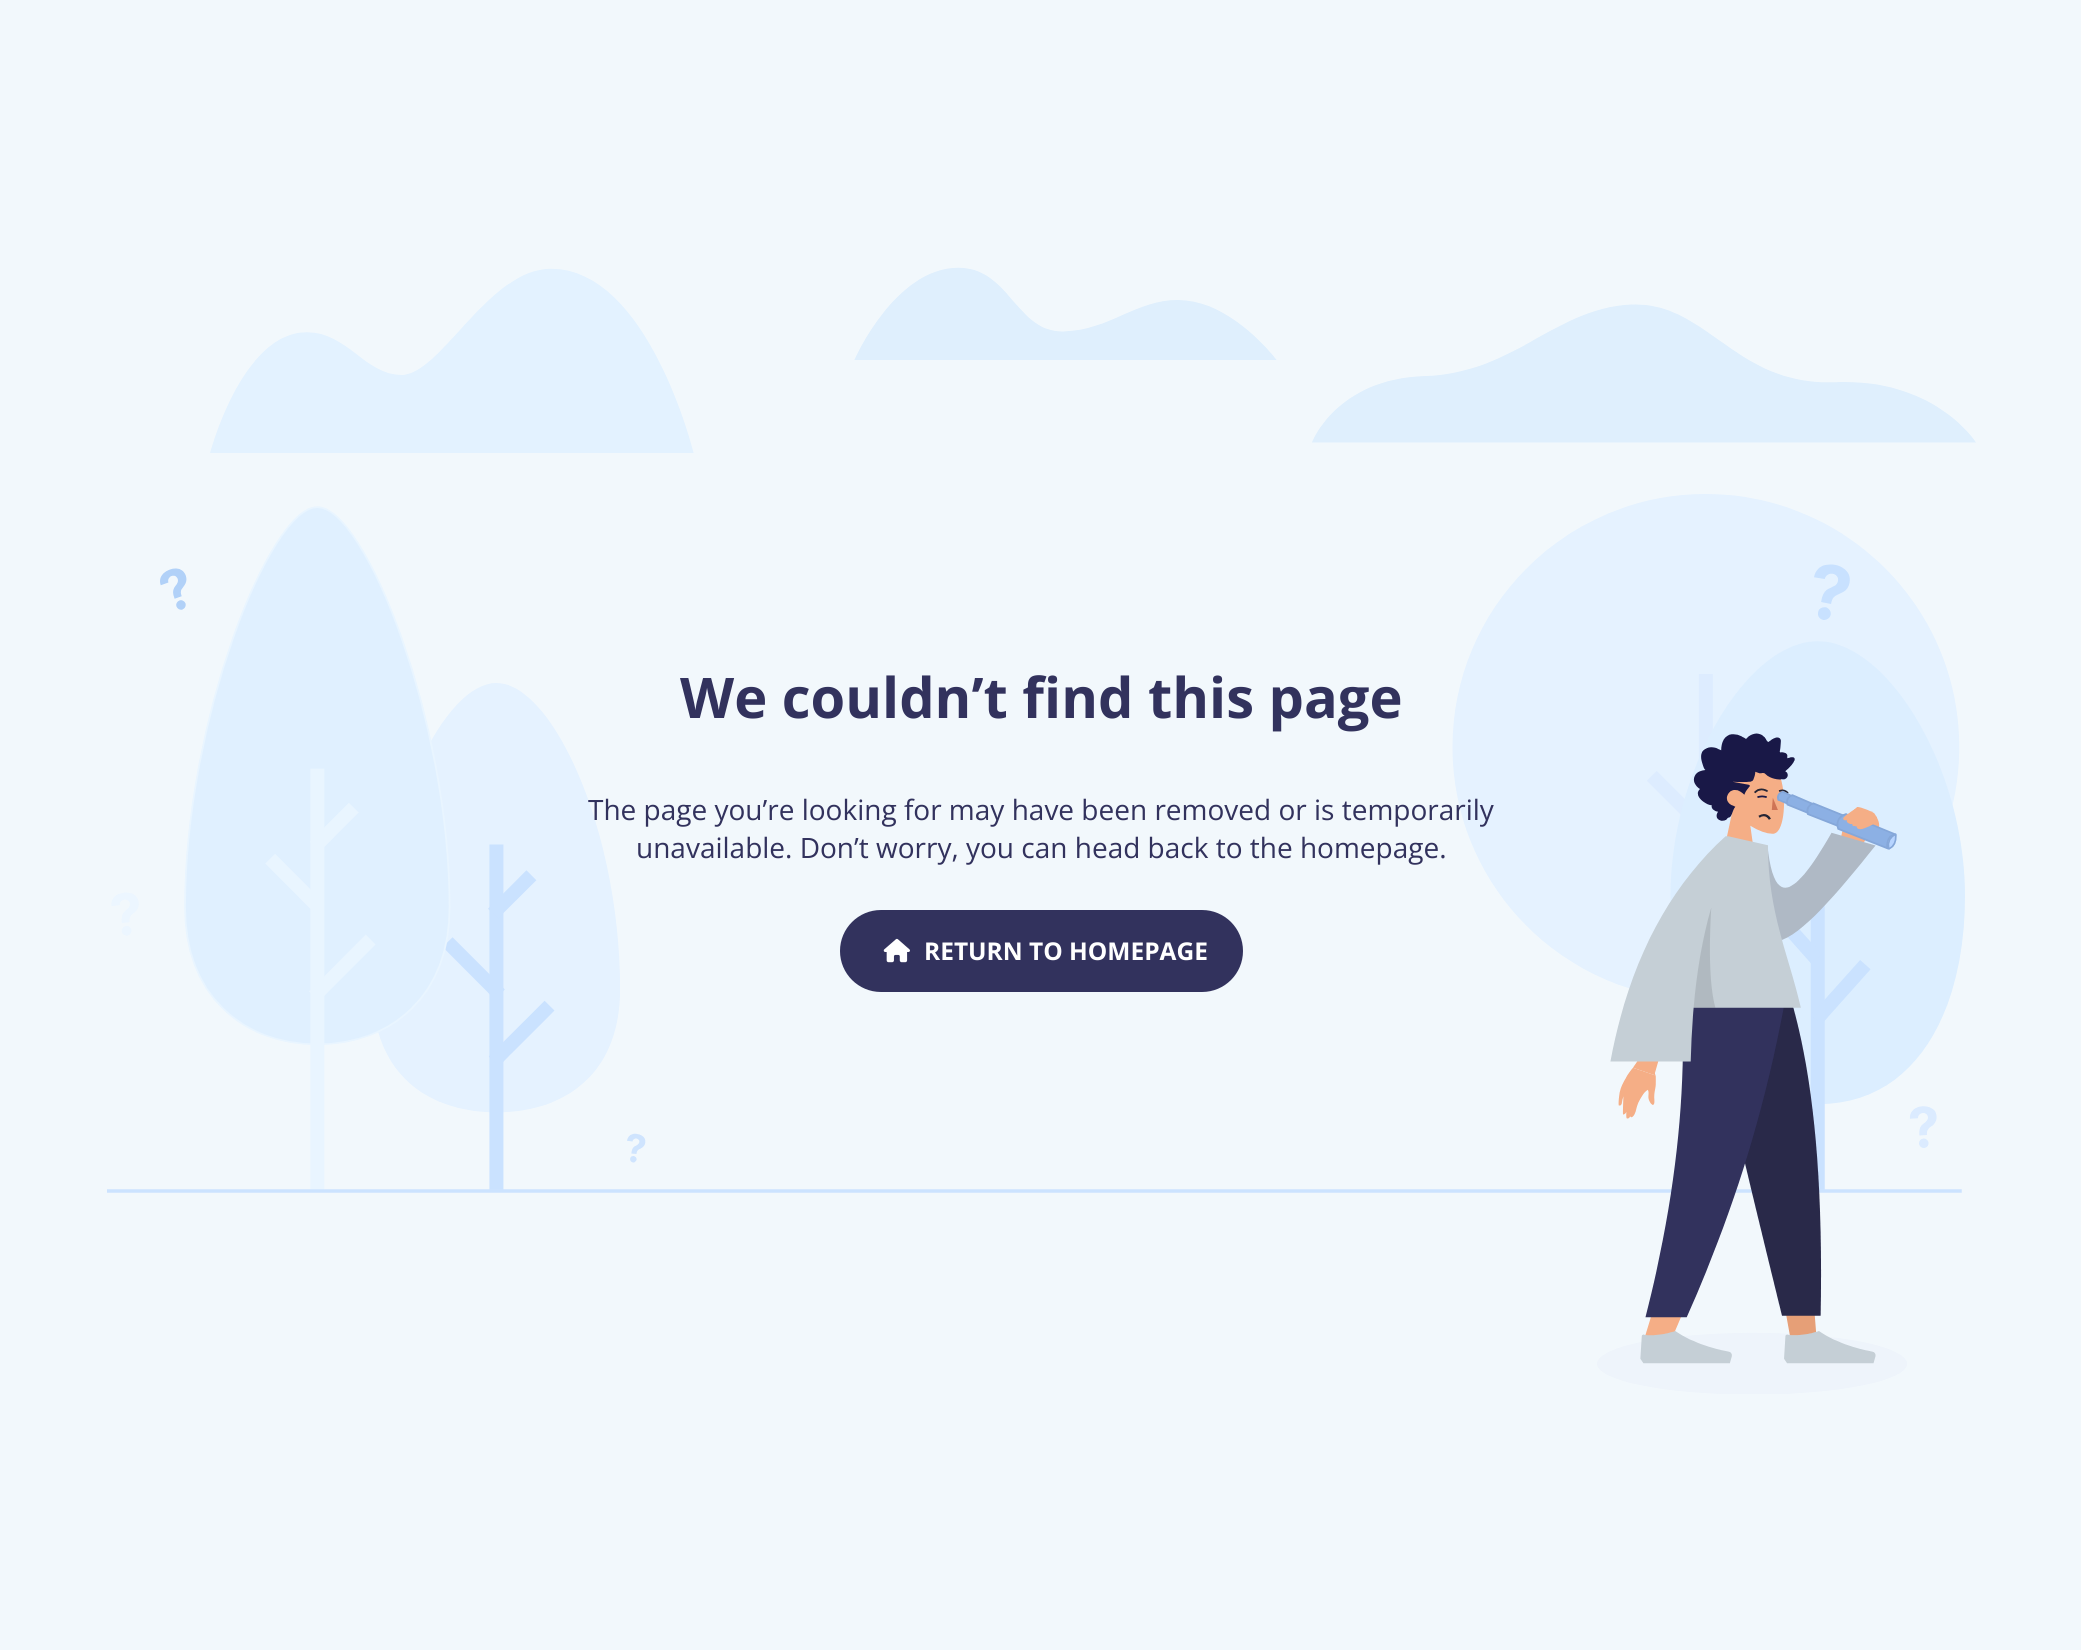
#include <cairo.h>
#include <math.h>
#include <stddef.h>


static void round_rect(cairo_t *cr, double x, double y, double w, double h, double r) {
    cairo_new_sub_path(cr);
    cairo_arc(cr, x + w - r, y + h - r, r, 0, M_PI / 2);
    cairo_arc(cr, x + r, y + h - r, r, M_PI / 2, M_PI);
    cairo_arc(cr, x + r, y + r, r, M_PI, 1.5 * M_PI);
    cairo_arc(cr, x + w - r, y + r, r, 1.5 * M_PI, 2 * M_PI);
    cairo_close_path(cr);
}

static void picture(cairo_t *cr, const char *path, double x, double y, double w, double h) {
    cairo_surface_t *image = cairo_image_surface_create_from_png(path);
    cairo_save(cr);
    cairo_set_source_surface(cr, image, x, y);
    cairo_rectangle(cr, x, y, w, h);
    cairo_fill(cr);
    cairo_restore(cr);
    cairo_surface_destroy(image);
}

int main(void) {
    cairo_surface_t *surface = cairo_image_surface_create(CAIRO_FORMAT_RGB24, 2081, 1650);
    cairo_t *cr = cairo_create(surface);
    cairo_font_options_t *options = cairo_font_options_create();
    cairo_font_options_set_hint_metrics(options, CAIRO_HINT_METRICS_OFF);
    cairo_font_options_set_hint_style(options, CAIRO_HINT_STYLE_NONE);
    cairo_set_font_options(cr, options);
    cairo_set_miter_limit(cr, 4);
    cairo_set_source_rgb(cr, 0.949, 0.969, 0.988);
    cairo_paint(cr);
    picture(cr, "img1.png", 107, 267, 1869, 1127);
    cairo_select_font_face(cr, "Open Sans", CAIRO_FONT_SLANT_NORMAL, CAIRO_FONT_WEIGHT_BOLD);
    cairo_set_font_size(cr, 56);
    cairo_set_source_rgb(cr, 0.196, 0.196, 0.365);
    cairo_move_to(cr, 680, 718);
    cairo_show_text(cr, "We couldn’t find this page");
    cairo_select_font_face(cr, "Open Sans", CAIRO_FONT_SLANT_NORMAL, CAIRO_FONT_WEIGHT_NORMAL);
    cairo_set_font_size(cr, 28);
    cairo_move_to(cr, 588, 820);
    cairo_show_text(cr, "The page you’re looking for may have been removed or is temporarily");
    cairo_move_to(cr, 636, 858);
    cairo_show_text(cr, "unavailable. Don’t worry, you can head back to the homepage.");
    round_rect(cr, 840, 910, 403, 82, 41);
    cairo_fill(cr);
    picture(cr, "img2.png", 883, 938, 27, 25);
    cairo_select_font_face(cr, "Open Sans", CAIRO_FONT_SLANT_NORMAL, CAIRO_FONT_WEIGHT_BOLD);
    cairo_set_font_size(cr, 24.5);
    cairo_set_source_rgb(cr, 1, 1, 1);
    cairo_move_to(cr, 924, 960);
    cairo_show_text(cr, "RETURN TO HOMEPAGE");
    cairo_surface_write_to_png(surface, "page.png");
    cairo_font_options_destroy(options);
    cairo_destroy(cr);
    cairo_surface_destroy(surface);
    return 0;
}
